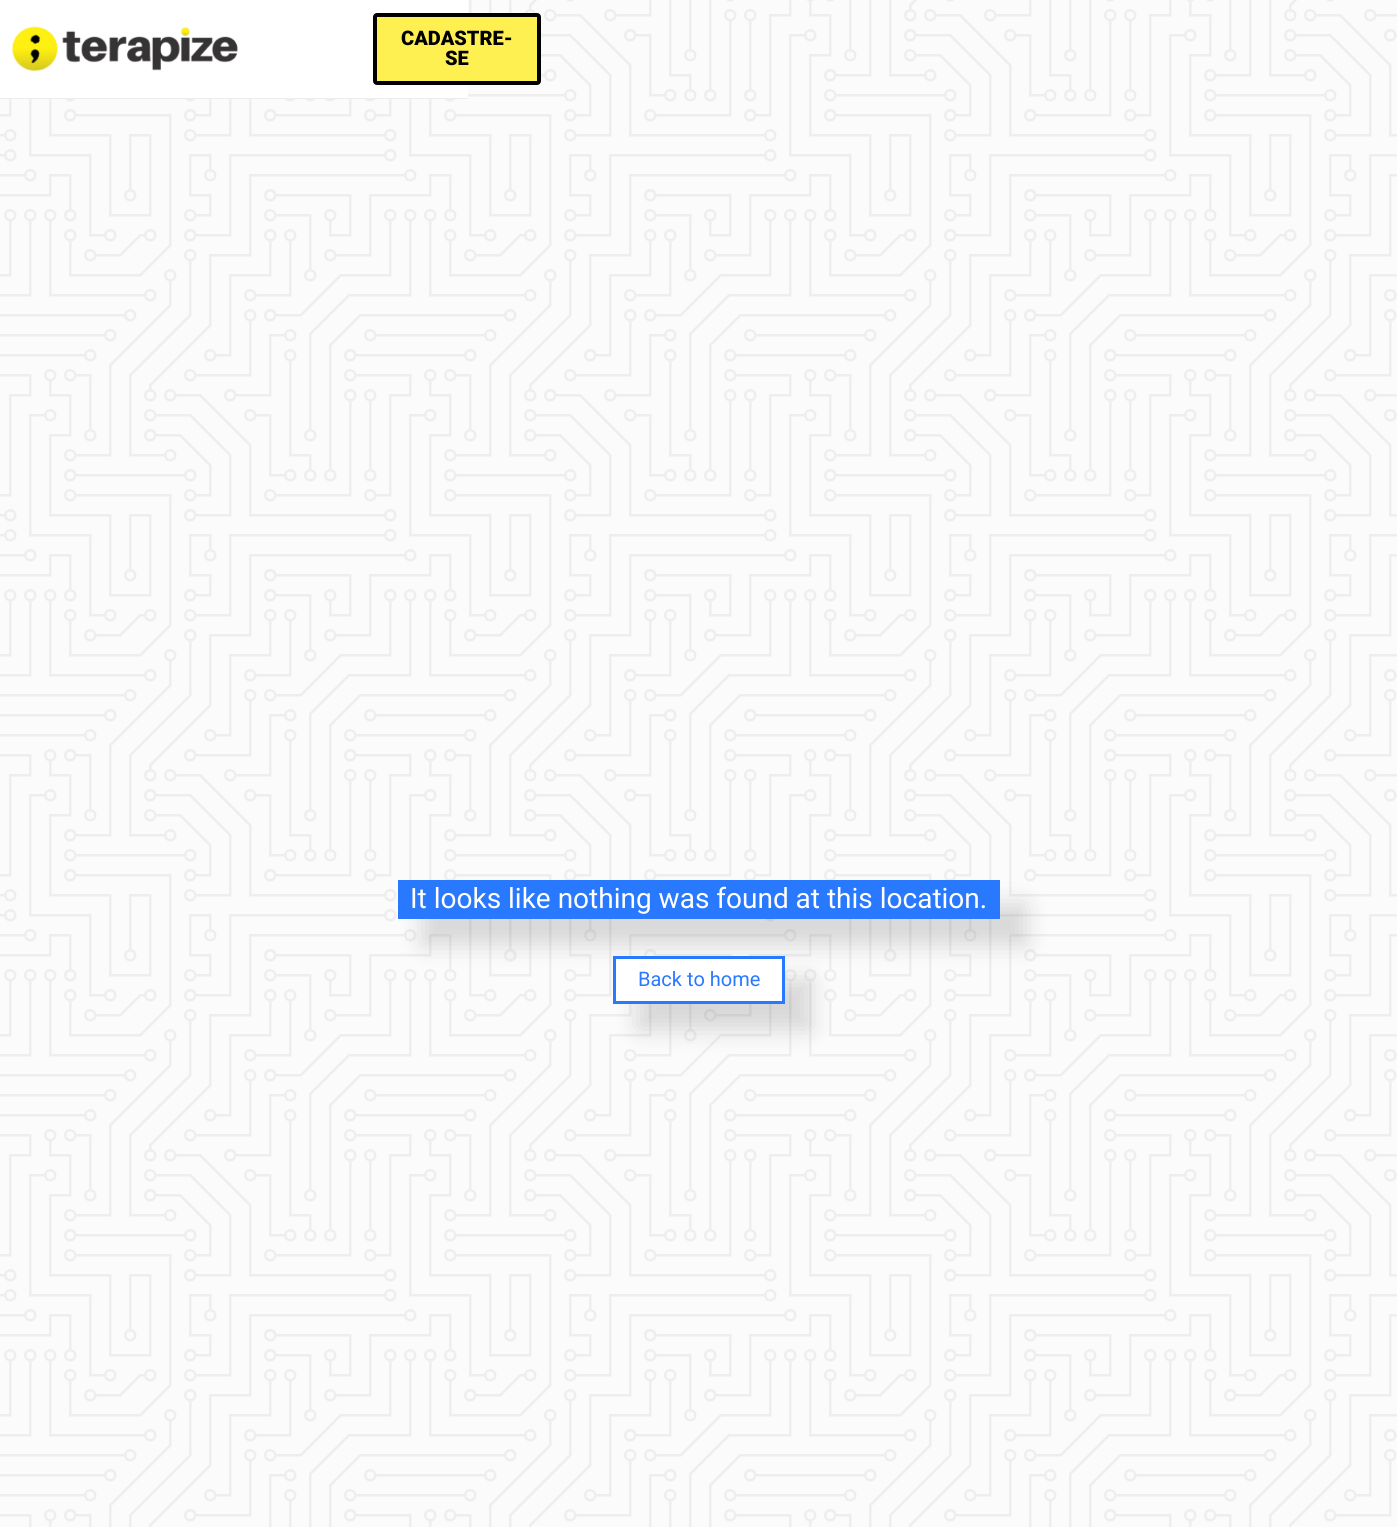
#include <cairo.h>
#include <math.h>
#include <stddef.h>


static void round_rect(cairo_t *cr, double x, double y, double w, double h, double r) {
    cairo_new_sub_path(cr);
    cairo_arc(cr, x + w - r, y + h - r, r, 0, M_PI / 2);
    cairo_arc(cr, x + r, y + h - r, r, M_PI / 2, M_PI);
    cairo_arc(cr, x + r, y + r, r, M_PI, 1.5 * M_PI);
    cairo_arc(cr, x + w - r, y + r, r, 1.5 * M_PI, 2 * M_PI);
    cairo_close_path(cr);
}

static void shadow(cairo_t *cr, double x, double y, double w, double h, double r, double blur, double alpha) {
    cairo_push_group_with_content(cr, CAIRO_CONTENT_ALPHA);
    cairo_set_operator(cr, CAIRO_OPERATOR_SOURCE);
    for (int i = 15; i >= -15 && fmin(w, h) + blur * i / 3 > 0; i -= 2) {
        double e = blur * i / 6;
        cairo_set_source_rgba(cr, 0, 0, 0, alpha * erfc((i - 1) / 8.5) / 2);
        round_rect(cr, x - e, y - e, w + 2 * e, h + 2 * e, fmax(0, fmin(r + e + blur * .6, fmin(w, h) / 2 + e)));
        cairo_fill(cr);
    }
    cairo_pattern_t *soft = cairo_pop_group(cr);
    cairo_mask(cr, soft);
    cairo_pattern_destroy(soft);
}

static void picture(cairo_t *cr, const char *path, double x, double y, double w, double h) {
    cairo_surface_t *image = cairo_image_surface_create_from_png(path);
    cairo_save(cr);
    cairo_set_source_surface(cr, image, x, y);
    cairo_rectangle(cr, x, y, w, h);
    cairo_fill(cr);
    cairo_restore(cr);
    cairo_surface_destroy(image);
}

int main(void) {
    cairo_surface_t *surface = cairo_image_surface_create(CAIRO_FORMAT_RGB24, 1397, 1527);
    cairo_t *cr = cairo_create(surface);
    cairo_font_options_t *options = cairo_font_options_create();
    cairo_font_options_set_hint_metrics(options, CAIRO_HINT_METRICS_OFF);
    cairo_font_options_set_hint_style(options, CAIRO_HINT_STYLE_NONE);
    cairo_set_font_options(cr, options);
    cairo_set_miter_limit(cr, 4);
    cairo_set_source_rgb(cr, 0.984, 0.984, 0.984);
    cairo_paint(cr);
    picture(cr, "img1.png", 0, 0, 1397, 1527);
    cairo_set_source_rgb(cr, 1, 1, 1);
    cairo_rectangle(cr, 0, 0, 468, 98);
    cairo_fill(cr);
    cairo_set_source_rgb(cr, 0.925, 0.929, 0.933);
    cairo_rectangle(cr, 0, 98, 468, 1);
    cairo_fill(cr);
    picture(cr, "img2.png", 12, 26, 226, 45);
    cairo_set_source_rgb(cr, 1, 0.941, 0.322);
    round_rect(cr, 375, 15, 164, 68, 2);
    cairo_fill_preserve(cr);
    cairo_set_source_rgb(cr, 0, 0, 0);
    cairo_set_line_width(cr, 4);
    cairo_stroke(cr);
    cairo_select_font_face(cr, "Roboto Black", CAIRO_FONT_SLANT_NORMAL, CAIRO_FONT_WEIGHT_NORMAL);
    cairo_set_font_size(cr, 20);
    cairo_move_to(cr, 401, 45);
    cairo_show_text(cr, "CADASTRE-");
    cairo_move_to(cr, 445, 65);
    cairo_show_text(cr, "SE");
    cairo_set_source_rgb(cr, 0, 0, 0);
    shadow(cr, 423, 905, 602, 39, 0, 12.5, 0.15);
    cairo_set_source_rgb(cr, 0.161, 0.475, 1);
    cairo_rectangle(cr, 398, 880, 602, 39);
    cairo_fill(cr);
    cairo_select_font_face(cr, "Roboto", CAIRO_FONT_SLANT_NORMAL, CAIRO_FONT_WEIGHT_NORMAL);
    cairo_set_font_size(cr, 28);
    cairo_set_source_rgb(cr, 1, 1, 1);
    cairo_move_to(cr, 410, 908);
    cairo_show_text(cr, "It looks like nothing was found at this location.");
    cairo_set_source_rgb(cr, 0, 0, 0);
    shadow(cr, 638, 981, 172, 48, 0, 12.5, 0.15);
    cairo_set_source_rgb(cr, 1, 1, 1);
    cairo_rectangle(cr, 614.5, 957.5, 169, 45);
    cairo_fill_preserve(cr);
    cairo_set_source_rgb(cr, 0.161, 0.475, 1);
    cairo_set_line_width(cr, 3);
    cairo_stroke(cr);
    cairo_set_font_size(cr, 20);
    cairo_move_to(cr, 638, 986);
    cairo_show_text(cr, "Back to home");
    cairo_surface_write_to_png(surface, "page.png");
    cairo_font_options_destroy(options);
    cairo_destroy(cr);
    cairo_surface_destroy(surface);
    return 0;
}
